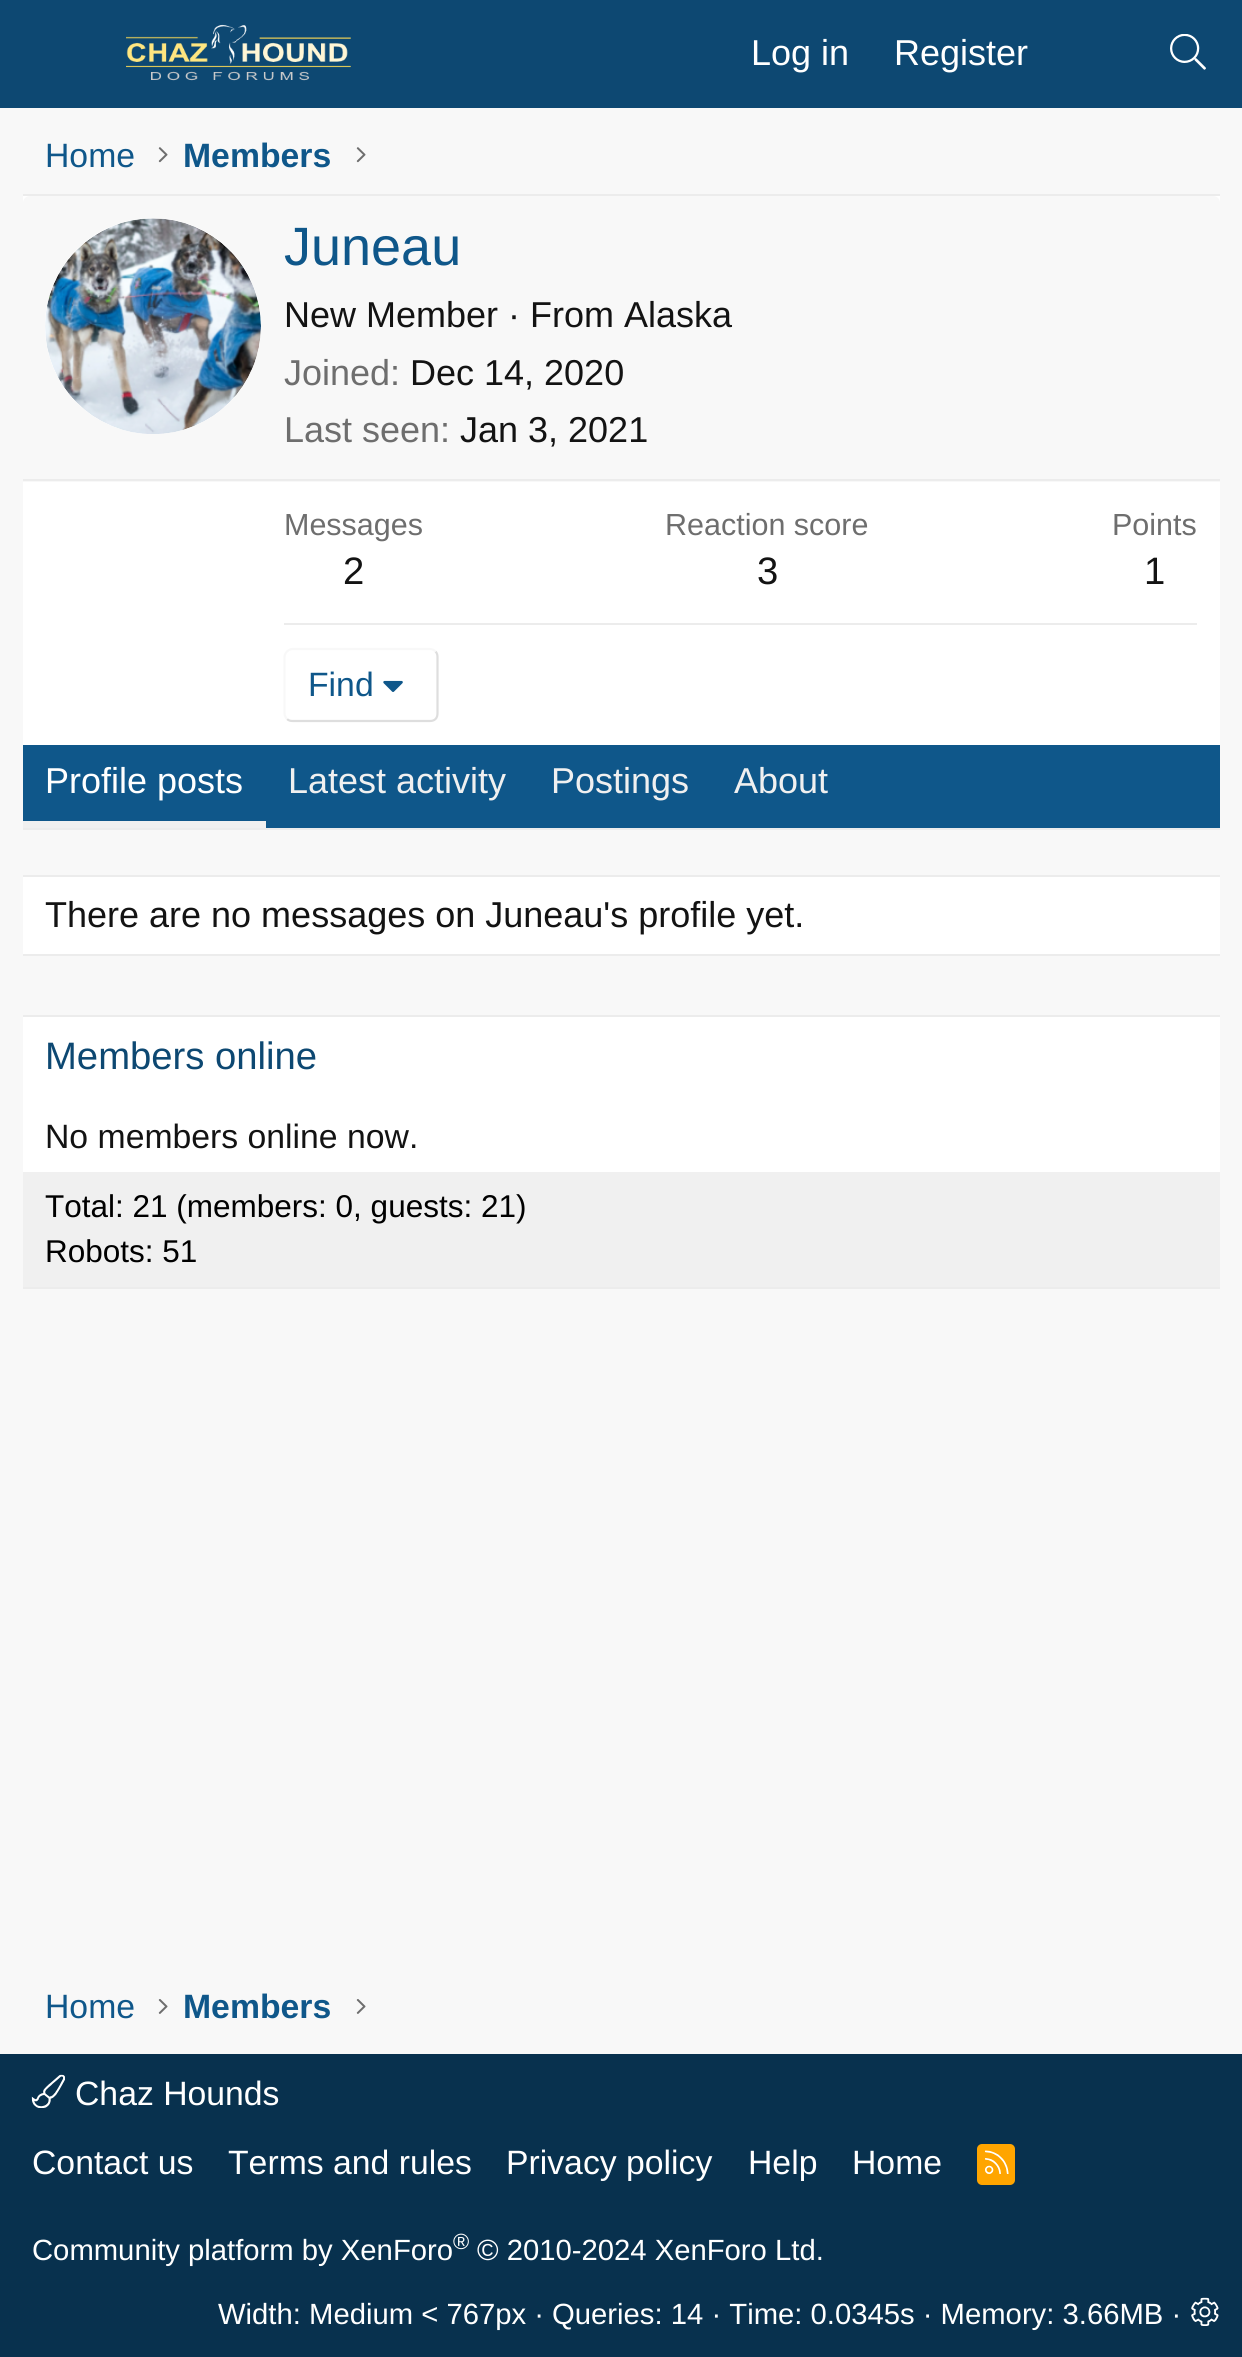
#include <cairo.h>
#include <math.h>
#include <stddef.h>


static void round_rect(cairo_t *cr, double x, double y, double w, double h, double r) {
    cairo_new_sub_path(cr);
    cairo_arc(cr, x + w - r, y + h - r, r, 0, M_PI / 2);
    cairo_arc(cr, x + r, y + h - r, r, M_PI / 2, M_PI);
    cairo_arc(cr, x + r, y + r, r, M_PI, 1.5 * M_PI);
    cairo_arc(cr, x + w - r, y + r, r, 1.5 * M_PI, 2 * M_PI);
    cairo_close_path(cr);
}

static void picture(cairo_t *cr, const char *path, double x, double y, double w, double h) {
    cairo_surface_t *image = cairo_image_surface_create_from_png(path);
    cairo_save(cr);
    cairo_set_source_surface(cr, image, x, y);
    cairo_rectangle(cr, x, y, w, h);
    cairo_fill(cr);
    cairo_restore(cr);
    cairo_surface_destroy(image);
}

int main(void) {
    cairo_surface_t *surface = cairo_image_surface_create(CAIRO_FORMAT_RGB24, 1242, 2357);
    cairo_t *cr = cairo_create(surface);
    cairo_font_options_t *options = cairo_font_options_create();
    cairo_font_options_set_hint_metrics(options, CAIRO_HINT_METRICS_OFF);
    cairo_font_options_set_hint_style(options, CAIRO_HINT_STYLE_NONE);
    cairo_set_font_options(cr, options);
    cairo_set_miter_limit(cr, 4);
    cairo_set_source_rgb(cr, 0.969, 0.969, 0.969);
    cairo_paint(cr);
    cairo_set_source_rgb(cr, 0.051, 0.282, 0.447);
    cairo_rectangle(cr, 0, 0, 1242, 108);
    cairo_fill(cr);
    picture(cr, "img1.png", 126, 24, 225, 57);
    cairo_select_font_face(cr, "Liberation Sans", CAIRO_FONT_SLANT_NORMAL, CAIRO_FONT_WEIGHT_NORMAL);
    cairo_set_font_size(cr, 36);
    cairo_set_source_rgb(cr, 1, 1, 1);
    cairo_move_to(cr, 751, 65);
    cairo_show_text(cr, "Log in");
    cairo_move_to(cr, 894, 65);
    cairo_show_text(cr, "Register");
    picture(cr, "img2.png", 1170, 34, 36, 36);
    cairo_set_font_size(cr, 33.75);
    cairo_set_source_rgb(cr, 0.059, 0.341, 0.541);
    cairo_move_to(cr, 45, 167);
    cairo_show_text(cr, "Home");
    picture(cr, "img3.png", 158, 147, 10, 16);
    cairo_select_font_face(cr, "Liberation Sans", CAIRO_FONT_SLANT_NORMAL, CAIRO_FONT_WEIGHT_BOLD);
    cairo_move_to(cr, 183, 167);
    cairo_show_text(cr, "Members");
    picture(cr, "img3.png", 356, 147, 10, 16);
    cairo_set_source_rgb(cr, 1, 1, 1);
    cairo_rectangle(cr, 23, 196, 1197, 549);
    cairo_fill(cr);
    cairo_set_source_rgb(cr, 0.922, 0.922, 0.922);
    cairo_rectangle(cr, 23, 194, 1197, 2);
    cairo_fill(cr);
    cairo_rectangle(cr, 23, 828, 1197, 2);
    cairo_fill(cr);
    cairo_set_source_rgb(cr, 0.969, 0.969, 0.969);
    cairo_new_path(cr);
    cairo_move_to(cr, 30, 196);
    cairo_line_to(cr, 1213, 196);
    cairo_curve_to(cr, 1217, 196, 1220, 199, 1220, 203);
    cairo_line_to(cr, 1220, 482);
    cairo_line_to(cr, 23, 482);
    cairo_line_to(cr, 23, 203);
    cairo_curve_to(cr, 23, 199, 26, 196, 30, 196);
    cairo_close_path(cr);
    cairo_fill(cr);
    cairo_set_source_rgb(cr, 0.922, 0.922, 0.922);
    cairo_rectangle(cr, 23, 479, 1197, 2);
    cairo_fill(cr);
    cairo_set_source_rgb(cr, 1, 1, 1);
    cairo_arc(cr, 153, 326, 108, 0, 2 * M_PI);
    cairo_fill(cr);
    picture(cr, "img4.png", 45, 218, 216, 216);
    cairo_select_font_face(cr, "Liberation Sans", CAIRO_FONT_SLANT_NORMAL, CAIRO_FONT_WEIGHT_NORMAL);
    cairo_set_font_size(cr, 54);
    cairo_set_source_rgb(cr, 0.059, 0.341, 0.541);
    cairo_move_to(cr, 284, 265);
    cairo_show_text(cr, "Juneau");
    cairo_set_font_size(cr, 36);
    cairo_set_source_rgb(cr, 0.078, 0.078, 0.078);
    cairo_move_to(cr, 284, 327);
    cairo_show_text(cr, "New Member · From Alaska");
    cairo_set_source_rgb(cr, 0.431, 0.431, 0.431);
    cairo_move_to(cr, 284, 385);
    cairo_show_text(cr, "Joined:");
    cairo_set_source_rgb(cr, 0.078, 0.078, 0.078);
    cairo_move_to(cr, 410, 385);
    cairo_show_text(cr, "Dec 14, 2020");
    cairo_set_source_rgb(cr, 0.431, 0.431, 0.431);
    cairo_move_to(cr, 284, 442);
    cairo_show_text(cr, "Last seen:");
    cairo_set_source_rgb(cr, 0.078, 0.078, 0.078);
    cairo_move_to(cr, 460, 442);
    cairo_show_text(cr, "Jan 3, 2021");
    cairo_set_font_size(cr, 30.5);
    cairo_set_source_rgb(cr, 0.431, 0.431, 0.431);
    cairo_move_to(cr, 284, 535);
    cairo_show_text(cr, "Messages");
    cairo_set_font_size(cr, 38.25);
    cairo_set_source_rgb(cr, 0.078, 0.078, 0.078);
    cairo_move_to(cr, 343, 584);
    cairo_show_text(cr, "2");
    cairo_set_font_size(cr, 30.5);
    cairo_set_source_rgb(cr, 0.431, 0.431, 0.431);
    cairo_move_to(cr, 665, 535);
    cairo_show_text(cr, "Reaction score");
    cairo_set_font_size(cr, 38.25);
    cairo_set_source_rgb(cr, 0.078, 0.078, 0.078);
    cairo_move_to(cr, 757, 584);
    cairo_show_text(cr, "3");
    cairo_set_font_size(cr, 30.5);
    cairo_set_source_rgb(cr, 0.431, 0.431, 0.431);
    cairo_move_to(cr, 1112, 535);
    cairo_show_text(cr, "Points");
    cairo_set_font_size(cr, 38.25);
    cairo_set_source_rgb(cr, 0.078, 0.078, 0.078);
    cairo_move_to(cr, 1144, 584);
    cairo_show_text(cr, "1");
    cairo_set_source_rgb(cr, 0.922, 0.922, 0.922);
    cairo_rectangle(cr, 284, 623, 913, 2);
    cairo_fill(cr);
    cairo_new_path(cr);
    cairo_move_to(cr, 435.5, 651.5);
    cairo_curve_to(cr, 437, 653, 437.5, 655, 437.5, 657);
    cairo_line_to(cr, 437.5, 713);
    cairo_curve_to(cr, 437.5, 715.5, 437, 717.5, 435.5, 719);
    cairo_curve_to(cr, 434, 720.5, 432, 721, 430, 721);
    cairo_line_to(cr, 292.5, 721);
    cairo_curve_to(cr, 290.5, 721, 288.5, 720.5, 287, 719);
    cairo_set_source_rgb(cr, 0.871, 0.871, 0.871);
    cairo_set_line_width(cr, 2.2);
    cairo_stroke(cr);
    cairo_new_path(cr);
    cairo_move_to(cr, 287, 719);
    cairo_curve_to(cr, 285.5, 717.5, 284.5, 715.5, 284.5, 713);
    cairo_line_to(cr, 284.5, 657);
    cairo_curve_to(cr, 284.5, 655, 285.5, 653, 287, 651.5);
    cairo_curve_to(cr, 288.5, 650, 290.5, 649, 292.5, 649);
    cairo_line_to(cr, 430, 649);
    cairo_curve_to(cr, 432, 649, 434, 650, 435.5, 651.5);
    cairo_set_source_rgb(cr, 0.969, 0.969, 0.969);
    cairo_stroke(cr);
    cairo_set_font_size(cr, 33.75);
    cairo_set_source_rgb(cr, 0.059, 0.341, 0.541);
    cairo_move_to(cr, 308, 696);
    cairo_show_text(cr, "Find");
    picture(cr, "img5.png", 383, 680, 20, 12);
    cairo_rectangle(cr, 23, 745, 1197, 83);
    cairo_fill(cr);
    cairo_set_source_rgb(cr, 0.941, 0.941, 0.941);
    cairo_rectangle(cr, 23, 821, 243, 7);
    cairo_fill(cr);
    cairo_set_font_size(cr, 36);
    cairo_set_source_rgb(cr, 1, 1, 1);
    cairo_move_to(cr, 45, 793);
    cairo_show_text(cr, "Profile posts");
    cairo_set_source_rgb(cr, 0.941, 0.941, 0.941);
    cairo_move_to(cr, 288, 793);
    cairo_show_text(cr, "Latest activity");
    cairo_move_to(cr, 551, 793);
    cairo_show_text(cr, "Postings");
    cairo_move_to(cr, 734, 793);
    cairo_show_text(cr, "About");
    cairo_set_source_rgb(cr, 1, 1, 1);
    cairo_rectangle(cr, 23, 877, 1197, 77);
    cairo_fill(cr);
    cairo_set_source_rgb(cr, 0.922, 0.922, 0.922);
    cairo_rectangle(cr, 23, 875, 1197, 2);
    cairo_fill(cr);
    cairo_rectangle(cr, 23, 954, 1197, 2);
    cairo_fill(cr);
    cairo_set_source_rgb(cr, 0.078, 0.078, 0.078);
    cairo_move_to(cr, 45, 927);
    cairo_show_text(cr, "There are no messages on Juneau's profile yet.");
    cairo_set_source_rgb(cr, 1, 1, 1);
    cairo_rectangle(cr, 23, 1017, 1197, 155);
    cairo_fill(cr);
    cairo_set_source_rgb(cr, 0.922, 0.922, 0.922);
    cairo_rectangle(cr, 23, 1015, 1197, 2);
    cairo_fill(cr);
    cairo_rectangle(cr, 23, 1287, 1197, 2);
    cairo_fill(cr);
    cairo_set_font_size(cr, 38.25);
    cairo_set_source_rgb(cr, 0.051, 0.282, 0.447);
    cairo_move_to(cr, 45, 1069);
    cairo_show_text(cr, "Members online");
    cairo_set_font_size(cr, 33.75);
    cairo_set_source_rgb(cr, 0.078, 0.078, 0.078);
    cairo_move_to(cr, 45, 1148);
    cairo_show_text(cr, "No members online now.");
    cairo_set_source_rgb(cr, 0.941, 0.941, 0.941);
    cairo_rectangle(cr, 23, 1172, 1197, 115);
    cairo_fill(cr);
    cairo_set_font_size(cr, 31.5);
    cairo_set_source_rgb(cr, 0, 0, 0);
    cairo_move_to(cr, 45, 1217);
    cairo_show_text(cr, "Total: 21 (members: 0, guests: 21)");
    cairo_move_to(cr, 45, 1262);
    cairo_show_text(cr, "Robots: 51");
    cairo_set_font_size(cr, 33.75);
    cairo_set_source_rgb(cr, 0.059, 0.341, 0.541);
    cairo_move_to(cr, 45, 2018);
    cairo_show_text(cr, "Home");
    picture(cr, "img6.png", 158, 1999, 10, 15);
    cairo_select_font_face(cr, "Liberation Sans", CAIRO_FONT_SLANT_NORMAL, CAIRO_FONT_WEIGHT_BOLD);
    cairo_move_to(cr, 183, 2018);
    cairo_show_text(cr, "Members");
    picture(cr, "img6.png", 356, 1999, 10, 15);
    cairo_set_source_rgb(cr, 0.035, 0.192, 0.306);
    cairo_rectangle(cr, 0, 2054, 1242, 303);
    cairo_fill(cr);
    picture(cr, "img7.png", 31, 2074, 34, 34);
    cairo_select_font_face(cr, "Liberation Sans", CAIRO_FONT_SLANT_NORMAL, CAIRO_FONT_WEIGHT_NORMAL);
    cairo_set_source_rgb(cr, 1, 1, 1);
    cairo_move_to(cr, 75, 2105);
    cairo_show_text(cr, "Chaz Hounds");
    cairo_move_to(cr, 32, 2174);
    cairo_show_text(cr, "Contact us");
    cairo_move_to(cr, 228, 2174);
    cairo_show_text(cr, "Terms and rules");
    cairo_move_to(cr, 506, 2174);
    cairo_show_text(cr, "Privacy policy");
    cairo_move_to(cr, 748, 2174);
    cairo_show_text(cr, "Help");
    cairo_move_to(cr, 852, 2174);
    cairo_show_text(cr, "Home");
    cairo_set_source_rgb(cr, 1, 0.647, 0);
    round_rect(cr, 977, 2144, 38, 41, 5);
    cairo_fill(cr);
    picture(cr, "img8.png", 984, 2150, 25, 24);
    cairo_set_font_size(cr, 29.25);
    cairo_set_source_rgb(cr, 1, 1, 1);
    cairo_move_to(cr, 32, 2260);
    cairo_show_text(cr, "Community platform by XenForo");
    cairo_set_font_size(cr, 22);
    cairo_move_to(cr, 453, 2249);
    cairo_show_text(cr, "®");
    cairo_set_font_size(cr, 29.25);
    cairo_move_to(cr, 477, 2260);
    cairo_show_text(cr, "© 2010-2024 XenForo Ltd.");
    cairo_move_to(cr, 218, 2324);
    cairo_show_text(cr, "Width: Medium < 767px · Queries: 14 · Time: 0.0345s · Memory: 3.66MB ·");
    picture(cr, "img9.png", 1191, 2297, 28, 29);
    cairo_surface_write_to_png(surface, "page.png");
    cairo_font_options_destroy(options);
    cairo_destroy(cr);
    cairo_surface_destroy(surface);
    return 0;
}
